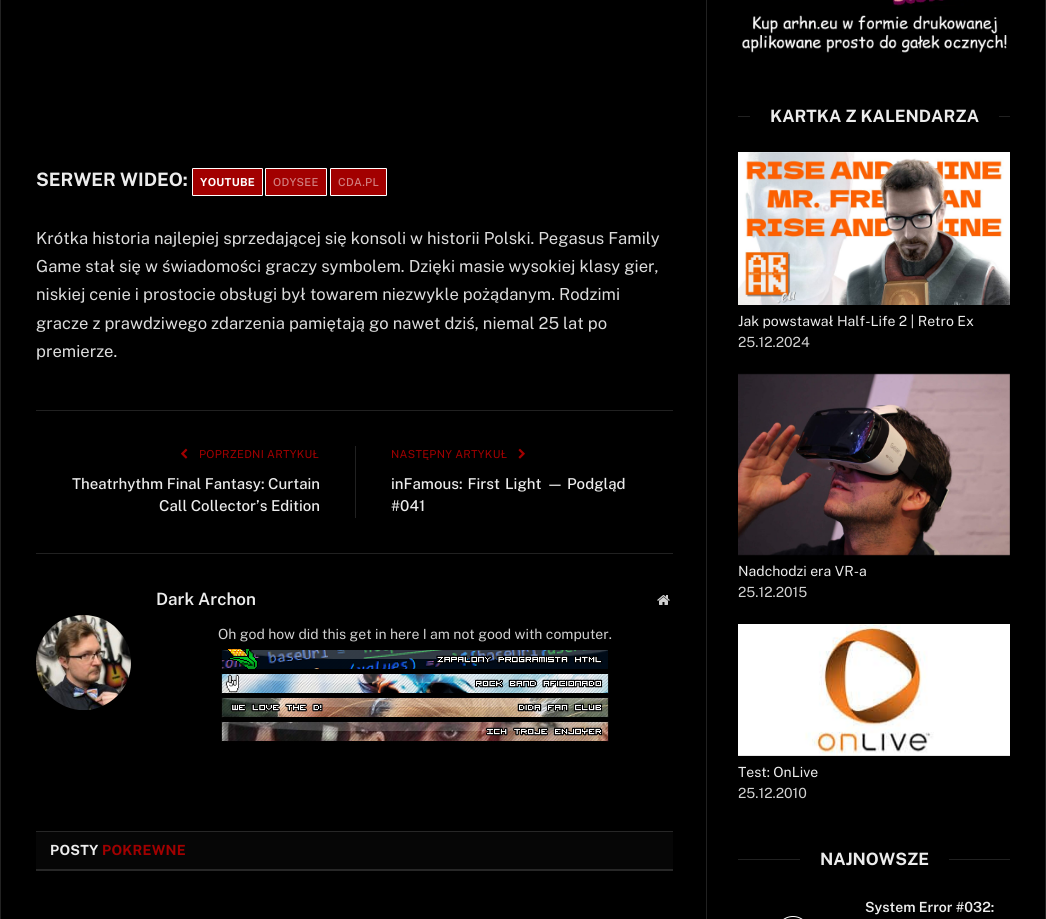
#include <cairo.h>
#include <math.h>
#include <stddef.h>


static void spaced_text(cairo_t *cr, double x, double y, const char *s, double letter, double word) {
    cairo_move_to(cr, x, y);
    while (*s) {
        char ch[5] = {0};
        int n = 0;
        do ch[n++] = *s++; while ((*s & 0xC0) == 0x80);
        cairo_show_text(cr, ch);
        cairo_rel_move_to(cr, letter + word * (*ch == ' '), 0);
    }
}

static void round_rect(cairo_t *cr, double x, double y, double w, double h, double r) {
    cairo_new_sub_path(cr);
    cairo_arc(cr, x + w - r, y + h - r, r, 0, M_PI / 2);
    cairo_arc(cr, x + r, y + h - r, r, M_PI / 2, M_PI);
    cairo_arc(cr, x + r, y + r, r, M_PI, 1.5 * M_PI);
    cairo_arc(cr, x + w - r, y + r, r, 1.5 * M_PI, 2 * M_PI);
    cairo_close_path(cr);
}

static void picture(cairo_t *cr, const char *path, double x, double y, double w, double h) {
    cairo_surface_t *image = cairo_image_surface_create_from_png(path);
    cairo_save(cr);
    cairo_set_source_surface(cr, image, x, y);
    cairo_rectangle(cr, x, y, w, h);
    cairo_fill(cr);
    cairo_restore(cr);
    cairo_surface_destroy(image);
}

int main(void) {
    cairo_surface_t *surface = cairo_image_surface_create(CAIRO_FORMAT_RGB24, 1046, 919);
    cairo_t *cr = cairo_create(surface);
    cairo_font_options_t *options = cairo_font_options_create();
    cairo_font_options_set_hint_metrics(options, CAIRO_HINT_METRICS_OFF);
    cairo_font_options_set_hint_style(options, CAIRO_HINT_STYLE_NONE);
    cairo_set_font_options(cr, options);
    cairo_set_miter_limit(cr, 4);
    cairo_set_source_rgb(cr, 0, 0, 0);
    cairo_paint(cr);
    cairo_set_source_rgb(cr, 0.133, 0.133, 0.133);
    cairo_rectangle(cr, 1045, 0, 1, 919);
    cairo_fill(cr);
    cairo_rectangle(cr, 0, 0, 1, 919);
    cairo_fill(cr);
    cairo_select_font_face(cr, "Public Sans", CAIRO_FONT_SLANT_NORMAL, CAIRO_FONT_WEIGHT_BOLD);
    cairo_set_font_size(cr, 18.5);
    cairo_set_source_rgb(cr, 0.925, 0.925, 0.925);
    cairo_move_to(cr, 36, 186);
    cairo_show_text(cr, "SERWER WIDEO:");
    cairo_set_source_rgb(cr, 0.635, 0, 0);
    round_rect(cr, 192.5, 168.5, 70, 27, 0.5);
    cairo_fill_preserve(cr);
    cairo_set_source_rgb(cr, 1, 1, 1);
    cairo_set_line_width(cr, 1);
    cairo_stroke(cr);
    cairo_set_font_size(cr, 11);
    spaced_text(cr, 200, 186, "YOUTUBE", 0.3, 0);
    cairo_set_source_rgb(cr, 0.635, 0, 0);
    round_rect(cr, 265.5, 168.5, 61, 27, 0.5);
    cairo_fill_preserve(cr);
    cairo_set_source_rgb(cr, 1, 1, 1);
    cairo_stroke(cr);
    cairo_select_font_face(cr, "Public Sans Medium", CAIRO_FONT_SLANT_NORMAL, CAIRO_FONT_WEIGHT_NORMAL);
    cairo_set_source_rgb(cr, 0.82, 0.502, 0.502);
    spaced_text(cr, 273, 186, "ODYSEE", 0.3, 0);
    cairo_set_source_rgb(cr, 0.635, 0, 0);
    round_rect(cr, 330.5, 168.5, 56, 27, 0.5);
    cairo_fill_preserve(cr);
    cairo_set_source_rgb(cr, 1, 1, 1);
    cairo_stroke(cr);
    cairo_set_source_rgb(cr, 0.82, 0.502, 0.502);
    spaced_text(cr, 338, 186, "CDA.PL", 0.3, 0);
    cairo_select_font_face(cr, "Public Sans", CAIRO_FONT_SLANT_NORMAL, CAIRO_FONT_WEIGHT_NORMAL);
    cairo_set_font_size(cr, 16.6);
    cairo_set_source_rgb(cr, 0.867, 0.867, 0.867);
    cairo_move_to(cr, 36, 244);
    cairo_show_text(cr, "Krótka historia najlepiej sprzedającej się konsoli w historii Polski. Pegasus Family");
    cairo_move_to(cr, 36, 272);
    cairo_show_text(cr, "Game stał się w świadomości graczy symbolem. Dzięki masie wysokiej klasy gier,");
    cairo_move_to(cr, 36, 300);
    cairo_show_text(cr, "niskiej cenie i prostocie obsługi był towarem niezwykle pożądanym. Rodzimi");
    cairo_move_to(cr, 36, 329);
    cairo_show_text(cr, "gracze z prawdziwego zdarzenia pamiętają go nawet dziś, niemal 25 lat po");
    cairo_move_to(cr, 36, 357);
    cairo_show_text(cr, "premierze.");
    cairo_set_source_rgb(cr, 0.129, 0.129, 0.129);
    cairo_rectangle(cr, 36, 410, 637, 1);
    cairo_fill(cr);
    picture(cr, "img1.png", 181, 448, 7, 11);
    cairo_set_font_size(cr, 11);
    cairo_set_source_rgb(cr, 0.635, 0, 0);
    spaced_text(cr, 199, 458, "POPRZEDNI ARTYKUŁ", 0.3, 0);
    cairo_select_font_face(cr, "Public Sans Medium", CAIRO_FONT_SLANT_NORMAL, CAIRO_FONT_WEIGHT_NORMAL);
    cairo_set_font_size(cr, 15);
    cairo_set_source_rgb(cr, 0.925, 0.925, 0.925);
    cairo_move_to(cr, 72, 489);
    cairo_show_text(cr, "Theatrhythm Final Fantasy: Curtain");
    cairo_move_to(cr, 159, 511);
    cairo_show_text(cr, "Call Collector’s Edition");
    cairo_set_source_rgb(cr, 0.129, 0.129, 0.129);
    cairo_rectangle(cr, 355, 446, 1, 72);
    cairo_fill(cr);
    cairo_select_font_face(cr, "Public Sans", CAIRO_FONT_SLANT_NORMAL, CAIRO_FONT_WEIGHT_NORMAL);
    cairo_set_font_size(cr, 11);
    cairo_set_source_rgb(cr, 0.635, 0, 0);
    spaced_text(cr, 391, 458, "NASTĘPNY ARTYKUŁ", 0.3, 0);
    picture(cr, "img2.png", 518, 448, 7, 11);
    cairo_select_font_face(cr, "Public Sans Medium", CAIRO_FONT_SLANT_NORMAL, CAIRO_FONT_WEIGHT_NORMAL);
    cairo_set_font_size(cr, 15);
    cairo_set_source_rgb(cr, 0.925, 0.925, 0.925);
    spaced_text(cr, 391, 489, "inFamous: First Light —", 0, 1.5);
    spaced_text(cr, 567, 489, "Podgląd", 0, 1.5);
    cairo_move_to(cr, 391, 511);
    cairo_show_text(cr, "#041");
    cairo_set_source_rgb(cr, 0.129, 0.129, 0.129);
    cairo_rectangle(cr, 36, 553, 637, 1);
    cairo_fill(cr);
    picture(cr, "img3.png", 36, 615, 95, 95);
    cairo_select_font_face(cr, "Public Sans SemiBold", CAIRO_FONT_SLANT_NORMAL, CAIRO_FONT_WEIGHT_NORMAL);
    cairo_set_font_size(cr, 17);
    cairo_set_source_rgb(cr, 0.925, 0.925, 0.925);
    cairo_move_to(cr, 156, 605);
    cairo_show_text(cr, "Dark Archon");
    picture(cr, "img4.png", 657, 595, 13, 10);
    cairo_select_font_face(cr, "Public Sans", CAIRO_FONT_SLANT_NORMAL, CAIRO_FONT_WEIGHT_NORMAL);
    cairo_set_font_size(cr, 14);
    cairo_set_source_rgb(cr, 0.82, 0.82, 0.82);
    cairo_move_to(cr, 218, 639);
    cairo_show_text(cr, "Oh god how did this get in here I am not good with computer.");
    picture(cr, "img5.png", 221, 649, 387, 20);
    picture(cr, "img6.png", 221, 673, 388, 21);
    picture(cr, "img7.png", 221, 697, 388, 21);
    picture(cr, "img8.png", 221, 721, 388, 21);
    cairo_set_source_rgb(cr, 0.027, 0.027, 0.027);
    cairo_rectangle(cr, 36, 832, 637, 37);
    cairo_fill(cr);
    cairo_set_source_rgb(cr, 0.153, 0.153, 0.153);
    cairo_rectangle(cr, 36, 831, 637, 1);
    cairo_fill(cr);
    cairo_rectangle(cr, 36, 869, 637, 2);
    cairo_fill(cr);
    cairo_select_font_face(cr, "Public Sans", CAIRO_FONT_SLANT_NORMAL, CAIRO_FONT_WEIGHT_BOLD);
    cairo_set_source_rgb(cr, 0.925, 0.925, 0.925);
    spaced_text(cr, 50, 855, "POSTY", 0.25, 0);
    cairo_set_source_rgb(cr, 0.635, 0, 0);
    spaced_text(cr, 102, 855, "POKREWNE", 0.25, 0);
    cairo_set_source_rgb(cr, 0.129, 0.129, 0.129);
    cairo_rectangle(cr, 706, 0, 1, 919);
    cairo_fill(cr);
    picture(cr, "img9.png", 742, 0, 265, 53);
    cairo_rectangle(cr, 738, 116, 12, 1);
    cairo_fill(cr);
    cairo_set_font_size(cr, 17);
    cairo_set_source_rgb(cr, 0.925, 0.925, 0.925);
    cairo_move_to(cr, 770, 122);
    cairo_show_text(cr, "KARTKA Z KALENDARZA");
    cairo_set_source_rgb(cr, 0.129, 0.129, 0.129);
    cairo_rectangle(cr, 999, 116, 11, 1);
    cairo_fill(cr);
    picture(cr, "img10.png", 738, 152, 272, 153);
    cairo_select_font_face(cr, "Public Sans", CAIRO_FONT_SLANT_NORMAL, CAIRO_FONT_WEIGHT_NORMAL);
    cairo_set_font_size(cr, 14);
    cairo_set_source_rgb(cr, 0.925, 0.925, 0.925);
    cairo_move_to(cr, 738, 326);
    cairo_show_text(cr, "Jak powstawał Half-Life 2 | Retro Ex");
    cairo_set_source_rgb(cr, 0.82, 0.82, 0.82);
    cairo_move_to(cr, 738, 347);
    cairo_show_text(cr, "25.12.2024");
    picture(cr, "img11.png", 738, 373, 272, 183);
    cairo_set_source_rgb(cr, 0.925, 0.925, 0.925);
    cairo_move_to(cr, 738, 576);
    cairo_show_text(cr, "Nadchodzi era VR-a");
    cairo_set_source_rgb(cr, 0.82, 0.82, 0.82);
    cairo_move_to(cr, 738, 597);
    cairo_show_text(cr, "25.12.2015");
    picture(cr, "img12.png", 738, 624, 272, 132);
    cairo_set_source_rgb(cr, 0.925, 0.925, 0.925);
    cairo_move_to(cr, 738, 777);
    cairo_show_text(cr, "Test: OnLive");
    cairo_set_source_rgb(cr, 0.82, 0.82, 0.82);
    cairo_move_to(cr, 738, 798);
    cairo_show_text(cr, "25.12.2010");
    cairo_set_source_rgb(cr, 0.129, 0.129, 0.129);
    cairo_rectangle(cr, 738, 859, 62, 1);
    cairo_fill(cr);
    cairo_select_font_face(cr, "Public Sans", CAIRO_FONT_SLANT_NORMAL, CAIRO_FONT_WEIGHT_BOLD);
    cairo_set_font_size(cr, 17);
    cairo_set_source_rgb(cr, 0.925, 0.925, 0.925);
    cairo_move_to(cr, 820, 865);
    cairo_show_text(cr, "NAJNOWSZE");
    cairo_set_source_rgb(cr, 0.129, 0.129, 0.129);
    cairo_rectangle(cr, 949, 859, 61, 1);
    cairo_fill(cr);
    cairo_select_font_face(cr, "Public Sans SemiBold", CAIRO_FONT_SLANT_NORMAL, CAIRO_FONT_WEIGHT_NORMAL);
    cairo_set_font_size(cr, 14);
    cairo_set_source_rgb(cr, 0.925, 0.925, 0.925);
    cairo_move_to(cr, 865, 912);
    cairo_show_text(cr, "System Error #032:");
    round_rect(cr, 776.5, 916.5, 33, 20, 16.5);
    cairo_set_source_rgb(cr, 1, 1, 1);
    cairo_stroke(cr);
    cairo_surface_write_to_png(surface, "page.png");
    cairo_font_options_destroy(options);
    cairo_destroy(cr);
    cairo_surface_destroy(surface);
    return 0;
}
